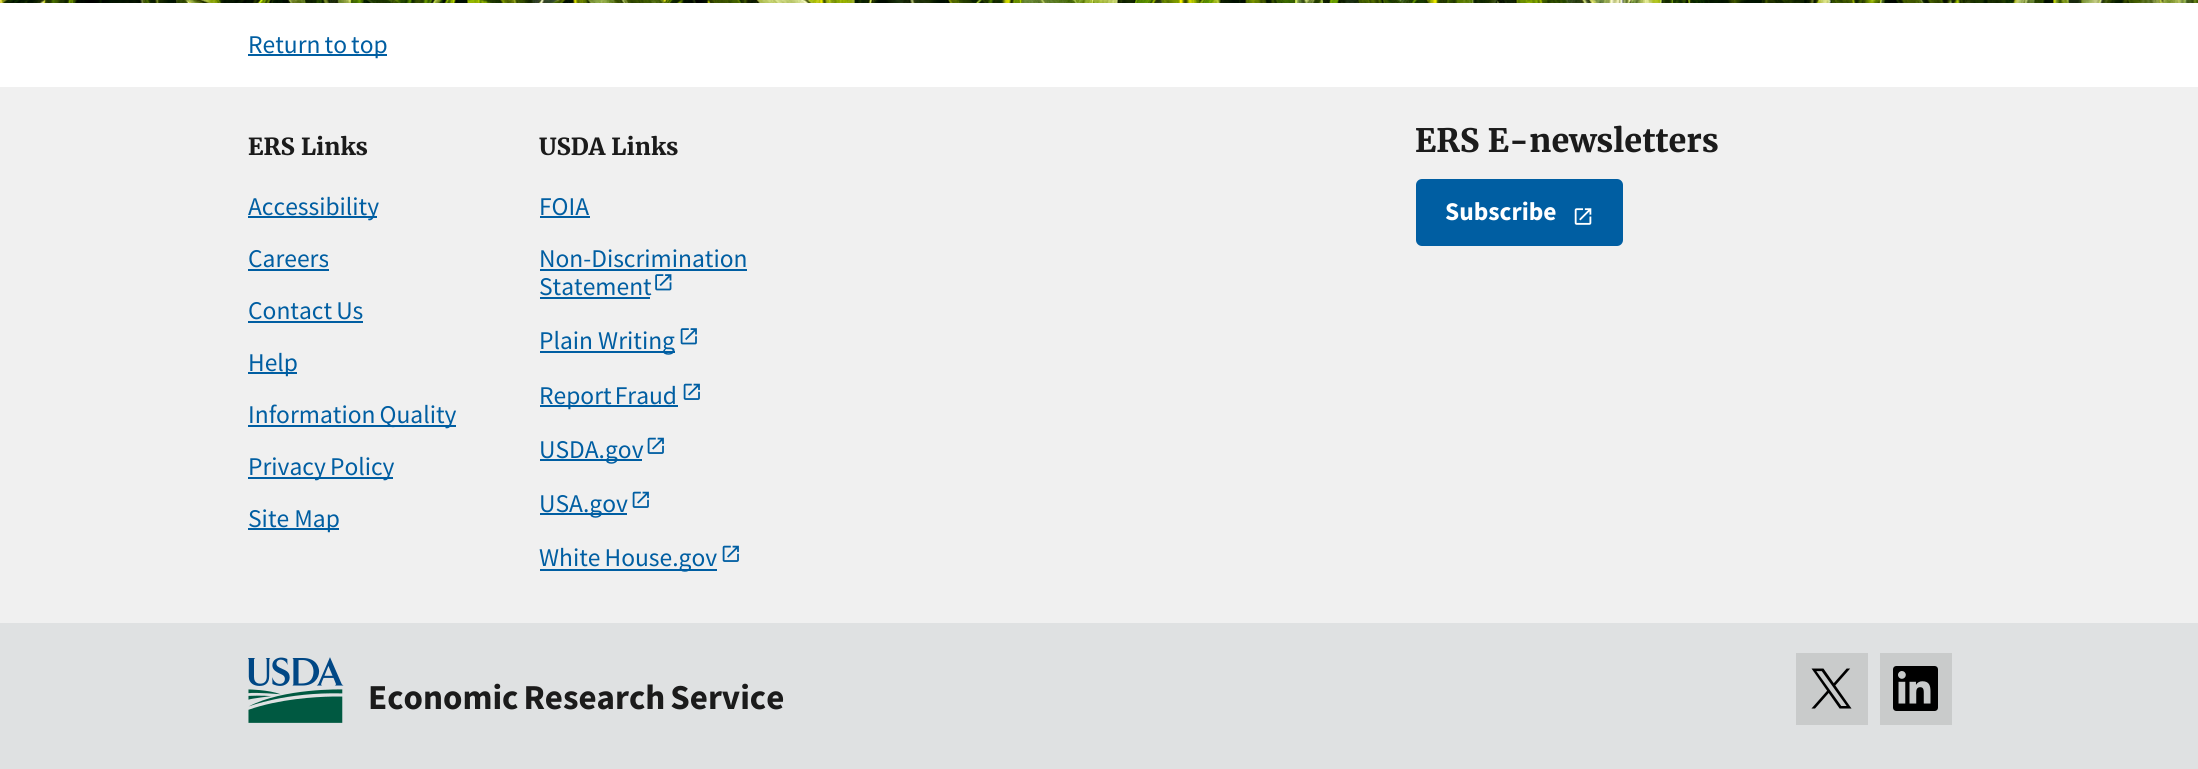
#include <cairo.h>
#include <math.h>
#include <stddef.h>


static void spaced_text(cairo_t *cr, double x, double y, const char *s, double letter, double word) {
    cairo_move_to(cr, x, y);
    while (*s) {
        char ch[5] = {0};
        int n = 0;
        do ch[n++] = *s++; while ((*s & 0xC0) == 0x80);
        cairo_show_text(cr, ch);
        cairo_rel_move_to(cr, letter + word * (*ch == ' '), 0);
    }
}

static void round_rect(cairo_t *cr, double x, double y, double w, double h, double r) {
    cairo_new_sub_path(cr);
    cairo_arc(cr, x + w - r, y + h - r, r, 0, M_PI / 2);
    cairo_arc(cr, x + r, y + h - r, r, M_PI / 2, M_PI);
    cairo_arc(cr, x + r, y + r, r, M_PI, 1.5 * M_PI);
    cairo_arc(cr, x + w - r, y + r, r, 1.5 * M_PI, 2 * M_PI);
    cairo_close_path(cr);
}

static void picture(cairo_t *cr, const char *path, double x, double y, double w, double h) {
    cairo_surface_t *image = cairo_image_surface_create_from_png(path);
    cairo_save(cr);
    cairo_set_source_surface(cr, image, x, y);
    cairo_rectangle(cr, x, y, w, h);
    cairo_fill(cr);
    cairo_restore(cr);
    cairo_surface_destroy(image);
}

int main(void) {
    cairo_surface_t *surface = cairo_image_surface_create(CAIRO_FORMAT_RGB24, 2198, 769);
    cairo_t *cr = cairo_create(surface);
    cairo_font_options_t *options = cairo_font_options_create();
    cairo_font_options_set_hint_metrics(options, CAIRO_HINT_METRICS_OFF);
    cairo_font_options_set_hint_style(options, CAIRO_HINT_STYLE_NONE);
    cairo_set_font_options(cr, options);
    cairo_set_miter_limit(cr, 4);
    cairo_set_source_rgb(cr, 1, 1, 1);
    cairo_paint(cr);
    picture(cr, "img1.png", 0, 0, 2198, 3);
    cairo_set_source_rgb(cr, 0, 0.369, 0.635);
    cairo_rectangle(cr, 248, 54, 139, 2);
    cairo_fill(cr);
    cairo_select_font_face(cr, "Source Sans Pro", CAIRO_FONT_SLANT_NORMAL, CAIRO_FONT_WEIGHT_NORMAL);
    cairo_set_font_size(cr, 25.5);
    spaced_text(cr, 248, 53, "Return to top", 0, -1);
    cairo_set_source_rgb(cr, 0.941, 0.941, 0.941);
    cairo_rectangle(cr, 0, 87, 2198, 536);
    cairo_fill(cr);
    cairo_select_font_face(cr, "Merriweather", CAIRO_FONT_SLANT_NORMAL, CAIRO_FONT_WEIGHT_BOLD);
    cairo_set_font_size(cr, 23.5);
    cairo_set_source_rgb(cr, 0.106, 0.106, 0.106);
    cairo_move_to(cr, 248, 155);
    cairo_show_text(cr, "ERS Links");
    cairo_set_source_rgb(cr, 0, 0.369, 0.635);
    cairo_rectangle(cr, 248, 216, 129, 2);
    cairo_fill(cr);
    cairo_select_font_face(cr, "Source Sans Pro", CAIRO_FONT_SLANT_NORMAL, CAIRO_FONT_WEIGHT_NORMAL);
    cairo_set_font_size(cr, 25.5);
    cairo_move_to(cr, 248, 215);
    cairo_show_text(cr, "Accessibility");
    cairo_move_to(cr, 248, 267);
    cairo_show_text(cr, "Careers");
    cairo_rectangle(cr, 248, 269, 81, 2);
    cairo_fill(cr);
    spaced_text(cr, 248, 319, "Contact Us", 0, -1);
    cairo_rectangle(cr, 248, 321, 115, 2);
    cairo_fill(cr);
    cairo_rectangle(cr, 248, 372, 49, 2);
    cairo_fill(cr);
    cairo_move_to(cr, 248, 371);
    cairo_show_text(cr, "Help");
    cairo_rectangle(cr, 248, 425, 208, 2);
    cairo_fill(cr);
    spaced_text(cr, 248, 423, "Information Quality", 0, -1);
    cairo_rectangle(cr, 248, 477, 145, 2);
    cairo_fill(cr);
    spaced_text(cr, 248, 475, "Privacy Policy", 0, -1);
    cairo_rectangle(cr, 248, 528, 91, 2);
    cairo_fill(cr);
    cairo_move_to(cr, 248, 527);
    cairo_show_text(cr, "Site Map");
    cairo_select_font_face(cr, "Merriweather", CAIRO_FONT_SLANT_NORMAL, CAIRO_FONT_WEIGHT_BOLD);
    cairo_set_font_size(cr, 23.5);
    cairo_set_source_rgb(cr, 0.106, 0.106, 0.106);
    cairo_move_to(cr, 539, 155);
    cairo_show_text(cr, "USDA Links");
    cairo_select_font_face(cr, "Source Sans Pro", CAIRO_FONT_SLANT_NORMAL, CAIRO_FONT_WEIGHT_NORMAL);
    cairo_set_font_size(cr, 25.5);
    cairo_set_source_rgb(cr, 0, 0.369, 0.635);
    cairo_move_to(cr, 539, 215);
    cairo_show_text(cr, "FOIA");
    cairo_rectangle(cr, 540, 216, 50, 2);
    cairo_fill(cr);
    cairo_move_to(cr, 539, 267);
    cairo_show_text(cr, "Non-Discrimination");
    cairo_rectangle(cr, 540, 269, 207, 2);
    cairo_fill(cr);
    cairo_move_to(cr, 539, 295);
    cairo_show_text(cr, "Statement");
    cairo_rectangle(cr, 540, 297, 110, 2);
    cairo_fill(cr);
    picture(cr, "img2.png", 655, 274, 17, 17);
    cairo_rectangle(cr, 540, 351, 135, 2);
    cairo_fill(cr);
    cairo_move_to(cr, 539, 349);
    cairo_show_text(cr, "Plain Writing");
    picture(cr, "img3.png", 680, 328, 17, 17);
    cairo_rectangle(cr, 540, 405, 138, 2);
    cairo_fill(cr);
    spaced_text(cr, 539, 404, "Report Fraud", 0, -2);
    picture(cr, "img4.png", 683, 383, 17, 17);
    cairo_rectangle(cr, 540, 459, 102, 2);
    cairo_fill(cr);
    cairo_move_to(cr, 539, 458);
    cairo_show_text(cr, "USDA.gov");
    picture(cr, "img4.png", 647, 437, 17, 17);
    cairo_rectangle(cr, 540, 513, 87, 2);
    cairo_fill(cr);
    cairo_move_to(cr, 539, 512);
    cairo_show_text(cr, "USA.gov");
    picture(cr, "img4.png", 632, 491, 17, 17);
    cairo_rectangle(cr, 540, 569, 177, 2);
    cairo_fill(cr);
    spaced_text(cr, 539, 566, "White House.gov", 0, -1);
    picture(cr, "img4.png", 722, 545, 17, 17);
    cairo_select_font_face(cr, "Merriweather", CAIRO_FONT_SLANT_NORMAL, CAIRO_FONT_WEIGHT_BOLD);
    cairo_set_font_size(cr, 32.25);
    cairo_set_source_rgb(cr, 0.106, 0.106, 0.106);
    cairo_move_to(cr, 1415, 152);
    cairo_show_text(cr, "ERS E-newsletters");
    cairo_set_source_rgb(cr, 0, 0.369, 0.635);
    round_rect(cr, 1416, 179, 207, 67, 6);
    cairo_fill(cr);
    cairo_select_font_face(cr, "Source Sans Pro", CAIRO_FONT_SLANT_NORMAL, CAIRO_FONT_WEIGHT_BOLD);
    cairo_set_font_size(cr, 25.5);
    cairo_set_source_rgb(cr, 1, 1, 1);
    cairo_move_to(cr, 1445, 220);
    cairo_show_text(cr, "Subscribe");
    picture(cr, "img5.png", 1574, 208, 18, 17);
    cairo_set_source_rgb(cr, 0.875, 0.882, 0.886);
    cairo_rectangle(cr, 0, 623, 2198, 146);
    cairo_fill(cr);
    picture(cr, "img6.png", 248, 657, 96, 66);
    cairo_set_font_size(cr, 35);
    cairo_set_source_rgb(cr, 0.106, 0.106, 0.106);
    spaced_text(cr, 368, 709, "Economic Research Service", 0, -2);
    cairo_set_source_rgb(cr, 0.788, 0.796, 0.796);
    cairo_rectangle(cr, 1796, 653, 72, 72);
    cairo_fill(cr);
    picture(cr, "img7.png", 1811, 668, 41, 41);
    cairo_rectangle(cr, 1880, 653, 72, 72);
    cairo_fill(cr);
    picture(cr, "img8.png", 1893, 666, 45, 45);
    cairo_surface_write_to_png(surface, "page.png");
    cairo_font_options_destroy(options);
    cairo_destroy(cr);
    cairo_surface_destroy(surface);
    return 0;
}
